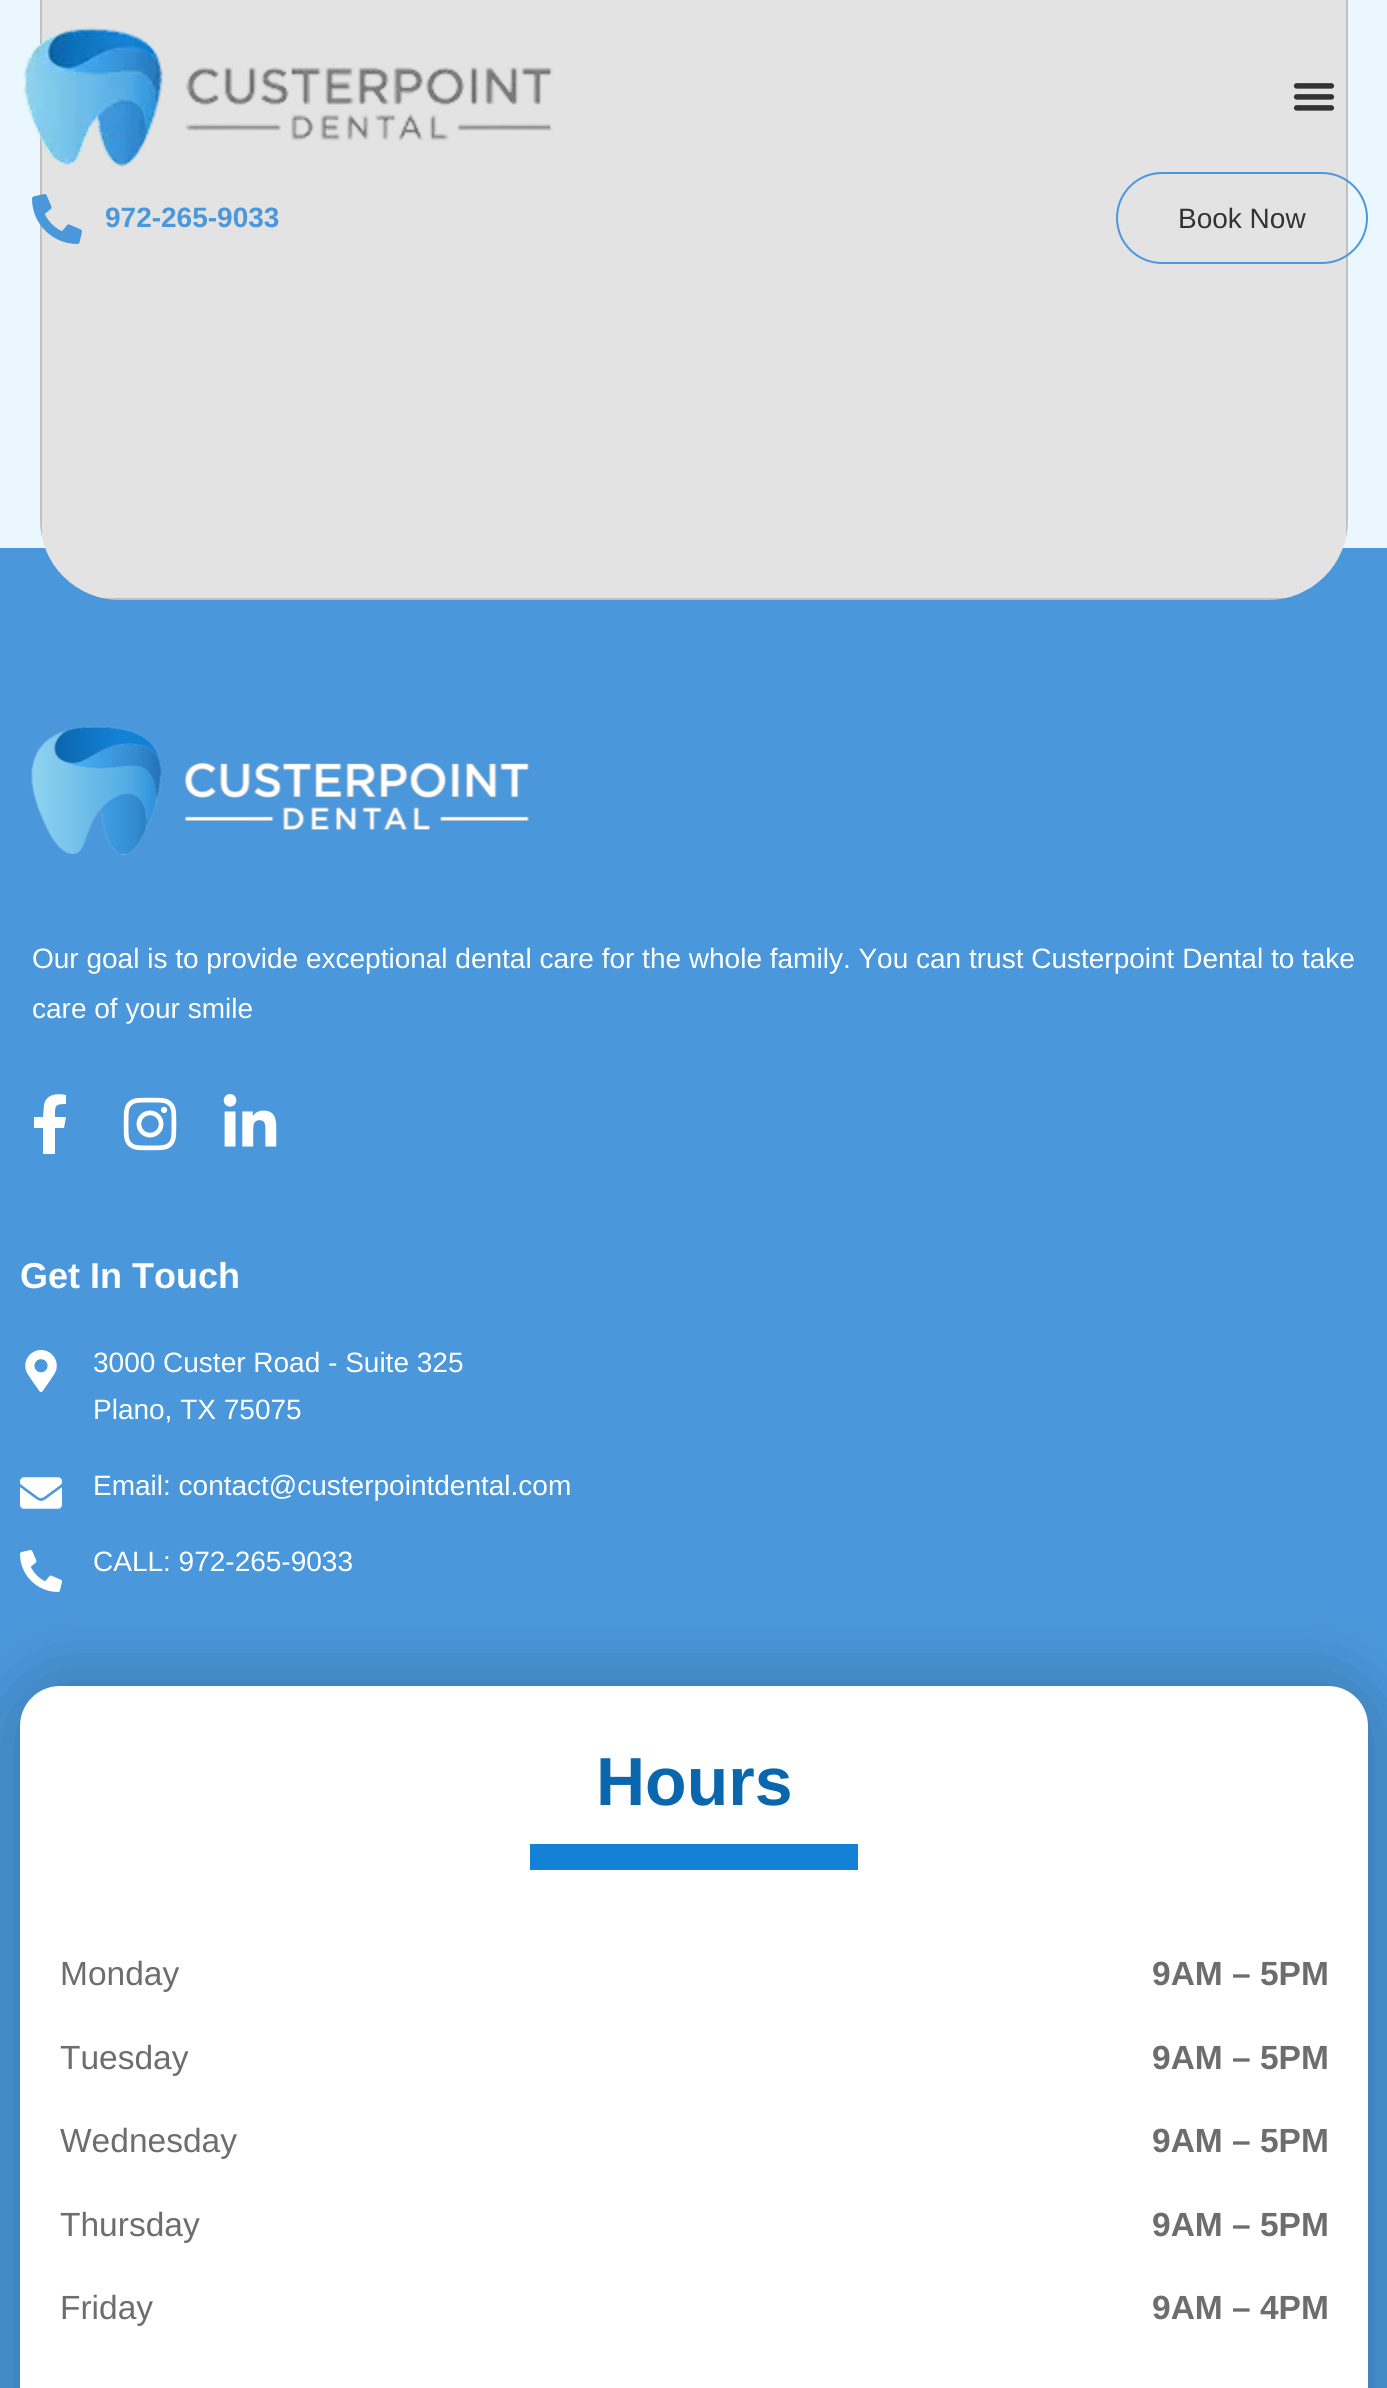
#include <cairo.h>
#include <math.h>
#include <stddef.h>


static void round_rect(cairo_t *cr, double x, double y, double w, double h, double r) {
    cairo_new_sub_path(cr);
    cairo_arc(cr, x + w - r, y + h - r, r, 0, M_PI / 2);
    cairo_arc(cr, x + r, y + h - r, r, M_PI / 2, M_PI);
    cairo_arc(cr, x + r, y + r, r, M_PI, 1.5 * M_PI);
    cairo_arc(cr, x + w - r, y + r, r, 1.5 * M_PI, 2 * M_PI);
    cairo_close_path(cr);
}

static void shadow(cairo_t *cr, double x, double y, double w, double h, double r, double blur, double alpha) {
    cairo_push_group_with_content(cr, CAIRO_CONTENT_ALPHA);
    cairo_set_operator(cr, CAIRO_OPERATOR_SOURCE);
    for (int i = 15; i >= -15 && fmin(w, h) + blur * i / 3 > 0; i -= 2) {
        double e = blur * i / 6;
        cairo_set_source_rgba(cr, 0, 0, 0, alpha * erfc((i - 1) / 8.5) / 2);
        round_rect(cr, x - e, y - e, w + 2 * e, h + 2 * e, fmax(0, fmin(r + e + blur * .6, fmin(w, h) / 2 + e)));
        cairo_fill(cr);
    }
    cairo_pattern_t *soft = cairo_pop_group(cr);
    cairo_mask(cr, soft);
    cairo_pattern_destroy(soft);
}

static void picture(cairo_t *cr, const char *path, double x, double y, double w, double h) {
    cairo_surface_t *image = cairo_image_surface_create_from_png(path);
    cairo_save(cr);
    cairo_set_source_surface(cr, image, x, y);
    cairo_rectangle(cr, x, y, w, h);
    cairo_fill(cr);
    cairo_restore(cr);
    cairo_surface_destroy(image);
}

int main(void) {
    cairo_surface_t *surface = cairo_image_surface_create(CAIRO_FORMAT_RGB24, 1387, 2388);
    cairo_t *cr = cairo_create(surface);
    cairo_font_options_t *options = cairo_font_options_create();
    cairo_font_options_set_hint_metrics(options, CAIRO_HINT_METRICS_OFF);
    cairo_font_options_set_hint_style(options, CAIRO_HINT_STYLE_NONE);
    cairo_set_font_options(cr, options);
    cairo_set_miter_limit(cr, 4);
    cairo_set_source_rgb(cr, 0.918, 0.965, 1);
    cairo_paint(cr);
    cairo_set_source_rgb(cr, 0.29, 0.596, 0.859);
    cairo_rectangle(cr, 0, 548, 1387, 1840);
    cairo_fill(cr);
    picture(cr, "img4.png", 40, 0, 1308, 600);
    picture(cr, "img1.png", 23, 27, 530, 140);
    picture(cr, "img2.png", 1293, 83, 42, 28);
    picture(cr, "img3.png", 32, 194, 50, 50);
    cairo_select_font_face(cr, "Liberation Sans", CAIRO_FONT_SLANT_NORMAL, CAIRO_FONT_WEIGHT_BOLD);
    cairo_set_font_size(cr, 28);
    cairo_move_to(cr, 105, 227);
    cairo_show_text(cr, "972-265-9033");
    round_rect(cr, 1117, 173, 250, 90, 45);
    cairo_stroke(cr);
    cairo_select_font_face(cr, "Liberation Sans", CAIRO_FONT_SLANT_NORMAL, CAIRO_FONT_WEIGHT_NORMAL);
    cairo_set_source_rgb(cr, 0.2, 0.2, 0.2);
    cairo_move_to(cr, 1178, 228);
    cairo_show_text(cr, "Book Now");
    picture(cr, "img5.png", 31, 726, 498, 129);
    cairo_set_source_rgb(cr, 1, 1, 1);
    cairo_move_to(cr, 32, 968);
    cairo_show_text(cr, "Our goal is to provide exceptional dental care for the whole family. You can trust Custerpoint Dental to take");
    cairo_move_to(cr, 32, 1018);
    cairo_show_text(cr, "care of your smile");
    cairo_new_path(cr);
    cairo_move_to(cr, 64, 1128);
    cairo_line_to(cr, 66, 1117);
    cairo_line_to(cr, 55, 1117);
    cairo_curve_to(cr, 55, 1106, 54, 1104, 66, 1104);
    cairo_line_to(cr, 66, 1095);
    cairo_curve_to(cr, 57, 1093, 46, 1094, 44, 1105);
    cairo_line_to(cr, 43, 1117);
    cairo_line_to(cr, 34, 1117);
    cairo_line_to(cr, 34, 1128);
    cairo_line_to(cr, 43, 1128);
    cairo_line_to(cr, 43, 1154);
    cairo_line_to(cr, 55, 1154);
    cairo_line_to(cr, 55, 1128);
    cairo_close_path(cr);
    cairo_fill(cr);
    picture(cr, "img6.png", 123, 1097, 54, 54);
    picture(cr, "img7.png", 223, 1094, 54, 53);
    cairo_select_font_face(cr, "Liberation Sans", CAIRO_FONT_SLANT_NORMAL, CAIRO_FONT_WEIGHT_BOLD);
    cairo_set_font_size(cr, 36);
    cairo_move_to(cr, 20, 1288);
    cairo_show_text(cr, "Get In Touch");
    picture(cr, "img8.png", 25, 1350, 32, 42);
    cairo_select_font_face(cr, "Liberation Sans", CAIRO_FONT_SLANT_NORMAL, CAIRO_FONT_WEIGHT_NORMAL);
    cairo_set_font_size(cr, 28);
    cairo_move_to(cr, 93, 1372);
    cairo_show_text(cr, "3000 Custer Road - Suite 325");
    cairo_move_to(cr, 93, 1419);
    cairo_show_text(cr, "Plano, TX 75075");
    picture(cr, "img9.png", 20, 1477, 42, 32);
    cairo_move_to(cr, 93, 1495);
    cairo_show_text(cr, "Email: contact@custerpointdental.com");
    picture(cr, "img10.png", 20, 1550, 42, 42);
    cairo_move_to(cr, 93, 1571);
    cairo_show_text(cr, "CALL: 972-265-9033");
    cairo_set_source_rgb(cr, 0, 0, 0);
    shadow(cr, 20, 1686, 1348, 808, 40, 40, 0.25);
    cairo_set_source_rgb(cr, 1, 1, 1);
    round_rect(cr, 20, 1686, 1348, 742, 40);
    cairo_fill(cr);
    cairo_select_font_face(cr, "Liberation Sans", CAIRO_FONT_SLANT_NORMAL, CAIRO_FONT_WEIGHT_BOLD);
    cairo_set_font_size(cr, 68);
    cairo_set_source_rgb(cr, 0.043, 0.404, 0.678);
    cairo_move_to(cr, 596, 1805);
    cairo_show_text(cr, "Hours");
    cairo_set_source_rgb(cr, 0.075, 0.506, 0.839);
    cairo_rectangle(cr, 530, 1844, 328, 26);
    cairo_fill(cr);
    cairo_select_font_face(cr, "Liberation Sans", CAIRO_FONT_SLANT_NORMAL, CAIRO_FONT_WEIGHT_NORMAL);
    cairo_set_font_size(cr, 33.5);
    cairo_set_source_rgb(cr, 0.427, 0.427, 0.427);
    cairo_move_to(cr, 60, 1985);
    cairo_show_text(cr, "Monday");
    cairo_select_font_face(cr, "Liberation Sans", CAIRO_FONT_SLANT_NORMAL, CAIRO_FONT_WEIGHT_BOLD);
    cairo_move_to(cr, 1152, 1985);
    cairo_show_text(cr, "9AM – 5PM");
    cairo_select_font_face(cr, "Liberation Sans", CAIRO_FONT_SLANT_NORMAL, CAIRO_FONT_WEIGHT_NORMAL);
    cairo_move_to(cr, 60, 2069);
    cairo_show_text(cr, "Tuesday");
    cairo_select_font_face(cr, "Liberation Sans", CAIRO_FONT_SLANT_NORMAL, CAIRO_FONT_WEIGHT_BOLD);
    cairo_move_to(cr, 1152, 2069);
    cairo_show_text(cr, "9AM – 5PM");
    cairo_select_font_face(cr, "Liberation Sans", CAIRO_FONT_SLANT_NORMAL, CAIRO_FONT_WEIGHT_NORMAL);
    cairo_move_to(cr, 60, 2152);
    cairo_show_text(cr, "Wednesday");
    cairo_select_font_face(cr, "Liberation Sans", CAIRO_FONT_SLANT_NORMAL, CAIRO_FONT_WEIGHT_BOLD);
    cairo_move_to(cr, 1152, 2152);
    cairo_show_text(cr, "9AM – 5PM");
    cairo_select_font_face(cr, "Liberation Sans", CAIRO_FONT_SLANT_NORMAL, CAIRO_FONT_WEIGHT_NORMAL);
    cairo_move_to(cr, 60, 2236);
    cairo_show_text(cr, "Thursday");
    cairo_select_font_face(cr, "Liberation Sans", CAIRO_FONT_SLANT_NORMAL, CAIRO_FONT_WEIGHT_BOLD);
    cairo_move_to(cr, 1152, 2236);
    cairo_show_text(cr, "9AM – 5PM");
    cairo_select_font_face(cr, "Liberation Sans", CAIRO_FONT_SLANT_NORMAL, CAIRO_FONT_WEIGHT_NORMAL);
    cairo_move_to(cr, 60, 2319);
    cairo_show_text(cr, "Friday");
    cairo_select_font_face(cr, "Liberation Sans", CAIRO_FONT_SLANT_NORMAL, CAIRO_FONT_WEIGHT_BOLD);
    cairo_move_to(cr, 1152, 2319);
    cairo_show_text(cr, "9AM – 4PM");
    cairo_surface_write_to_png(surface, "page.png");
    cairo_font_options_destroy(options);
    cairo_destroy(cr);
    cairo_surface_destroy(surface);
    return 0;
}
